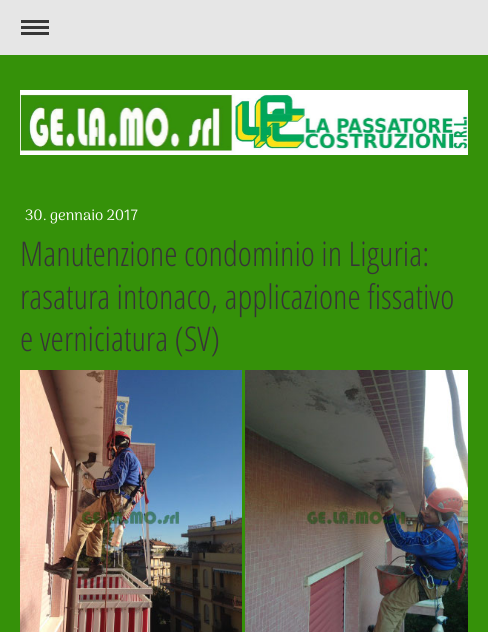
#include <cairo.h>
#include <math.h>
#include <stddef.h>


static void picture(cairo_t *cr, const char *path, double x, double y, double w, double h) {
    cairo_surface_t *image = cairo_image_surface_create_from_png(path);
    cairo_save(cr);
    cairo_set_source_surface(cr, image, x, y);
    cairo_rectangle(cr, x, y, w, h);
    cairo_fill(cr);
    cairo_restore(cr);
    cairo_surface_destroy(image);
}

int main(void) {
    cairo_surface_t *surface = cairo_image_surface_create(CAIRO_FORMAT_RGB24, 488, 632);
    cairo_t *cr = cairo_create(surface);
    cairo_font_options_t *options = cairo_font_options_create();
    cairo_font_options_set_hint_metrics(options, CAIRO_HINT_METRICS_OFF);
    cairo_font_options_set_hint_style(options, CAIRO_HINT_STYLE_NONE);
    cairo_set_font_options(cr, options);
    cairo_set_miter_limit(cr, 4);
    cairo_set_source_rgb(cr, 0.208, 0.569, 0.039);
    cairo_paint(cr);
    cairo_set_source_rgb(cr, 0.902, 0.902, 0.902);
    cairo_rectangle(cr, 0, 0, 488, 55);
    cairo_fill(cr);
    cairo_set_source_rgb(cr, 0.212, 0.212, 0.212);
    cairo_rectangle(cr, 21, 26, 28, 3);
    cairo_fill(cr);
    cairo_rectangle(cr, 21, 20, 28, 3);
    cairo_fill(cr);
    cairo_rectangle(cr, 21, 32, 28, 3);
    cairo_fill(cr);
    picture(cr, "img1.png", 20, 90, 448, 65);
    cairo_select_font_face(cr, "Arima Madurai", CAIRO_FONT_SLANT_NORMAL, CAIRO_FONT_WEIGHT_NORMAL);
    cairo_set_font_size(cr, 15);
    cairo_set_source_rgb(cr, 1, 1, 1);
    cairo_move_to(cr, 25, 220);
    cairo_show_text(cr, "30. gennaio 2017");
    cairo_select_font_face(cr, "Open Sans Condensed Light", CAIRO_FONT_SLANT_NORMAL, CAIRO_FONT_WEIGHT_NORMAL);
    cairo_set_font_size(cr, 34);
    cairo_set_source_rgb(cr, 0.212, 0.212, 0.212);
    cairo_move_to(cr, 20, 266);
    cairo_show_text(cr, "Manutenzione condominio in Liguria:");
    cairo_move_to(cr, 20, 309);
    cairo_show_text(cr, "rasatura intonaco, applicazione fissativo");
    cairo_move_to(cr, 20, 351);
    cairo_show_text(cr, "e verniciatura (SV)");
    picture(cr, "img2.png", 20, 370, 222, 262);
    picture(cr, "img3.png", 245, 370, 223, 262);
    cairo_surface_write_to_png(surface, "page.png");
    cairo_font_options_destroy(options);
    cairo_destroy(cr);
    cairo_surface_destroy(surface);
    return 0;
}
